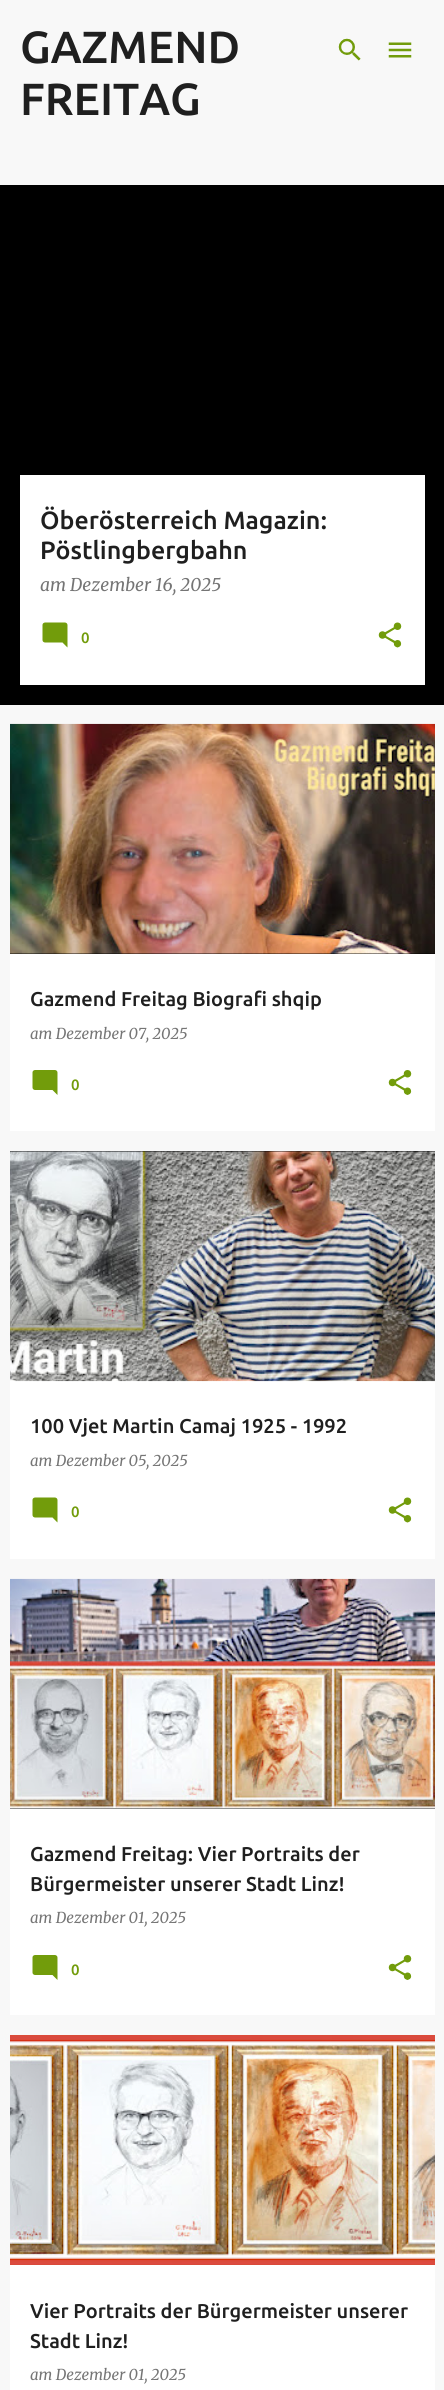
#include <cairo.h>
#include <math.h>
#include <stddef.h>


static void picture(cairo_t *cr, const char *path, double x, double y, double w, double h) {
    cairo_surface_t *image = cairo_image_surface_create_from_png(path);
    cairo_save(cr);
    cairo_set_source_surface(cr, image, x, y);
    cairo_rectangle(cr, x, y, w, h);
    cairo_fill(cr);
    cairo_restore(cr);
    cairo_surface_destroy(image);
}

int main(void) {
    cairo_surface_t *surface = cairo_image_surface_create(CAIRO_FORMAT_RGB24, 444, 2390);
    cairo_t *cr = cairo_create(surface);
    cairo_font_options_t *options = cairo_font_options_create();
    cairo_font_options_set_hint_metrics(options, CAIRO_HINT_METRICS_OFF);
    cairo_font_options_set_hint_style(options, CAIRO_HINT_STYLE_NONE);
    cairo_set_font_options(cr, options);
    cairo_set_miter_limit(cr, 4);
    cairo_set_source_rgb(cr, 0.969, 0.969, 0.969);
    cairo_paint(cr);
    cairo_select_font_face(cr, "Ubuntu Medium", CAIRO_FONT_SLANT_NORMAL, CAIRO_FONT_WEIGHT_NORMAL);
    cairo_set_font_size(cr, 45);
    cairo_set_source_rgb(cr, 0.122, 0.122, 0.122);
    cairo_move_to(cr, 20, 63);
    cairo_show_text(cr, "GAZMEND");
    cairo_move_to(cr, 20, 115);
    cairo_show_text(cr, "FREITAG");
    picture(cr, "img1.png", 338, 38, 23, 23);
    picture(cr, "img2.png", 388, 42, 24, 16);
    cairo_set_source_rgb(cr, 0, 0, 0);
    cairo_rectangle(cr, 0, 185, 444, 520);
    cairo_fill(cr);
    cairo_set_source_rgb(cr, 1, 1, 1);
    cairo_rectangle(cr, 20, 475, 405, 210);
    cairo_fill(cr);
    cairo_set_font_size(cr, 25);
    cairo_set_source_rgb(cr, 0.122, 0.122, 0.122);
    cairo_move_to(cr, 40, 529);
    cairo_show_text(cr, "Öberösterreich Magazin:");
    cairo_move_to(cr, 40, 559);
    cairo_show_text(cr, "Pöstlingbergbahn");
    cairo_select_font_face(cr, "Merriweather Light", CAIRO_FONT_SLANT_ITALIC, CAIRO_FONT_WEIGHT_NORMAL);
    cairo_set_font_size(cr, 17.5);
    cairo_set_source_rgb(cr, 0.459, 0.459, 0.459);
    cairo_move_to(cr, 40, 591);
    cairo_show_text(cr, "am Dezember 16, 2025");
    picture(cr, "img3.png", 42, 622, 26, 26);
    cairo_select_font_face(cr, "Ubuntu Medium", CAIRO_FONT_SLANT_NORMAL, CAIRO_FONT_WEIGHT_NORMAL);
    cairo_set_font_size(cr, 15);
    cairo_set_source_rgb(cr, 0.447, 0.612, 0.043);
    cairo_move_to(cr, 81, 643);
    cairo_show_text(cr, "0");
    picture(cr, "img4.png", 378, 622, 24, 26);
    cairo_set_source_rgb(cr, 1, 1, 1);
    cairo_rectangle(cr, 10, 954, 425, 177);
    cairo_fill(cr);
    cairo_set_source_rgb(cr, 0, 0, 0);
    cairo_rectangle(cr, 10, 953, 425, 1);
    cairo_fill(cr);
    picture(cr, "img5.png", 10, 723, 425, 231);
    cairo_set_font_size(cr, 20);
    cairo_set_source_rgb(cr, 0.122, 0.122, 0.122);
    cairo_move_to(cr, 30, 1006);
    cairo_show_text(cr, "Gazmend Freitag Biografi shqip");
    cairo_select_font_face(cr, "Merriweather Light", CAIRO_FONT_SLANT_ITALIC, CAIRO_FONT_WEIGHT_NORMAL);
    cairo_set_font_size(cr, 15);
    cairo_set_source_rgb(cr, 0.459, 0.459, 0.459);
    cairo_move_to(cr, 30, 1039);
    cairo_show_text(cr, "am Dezember 07, 2025");
    picture(cr, "img6.png", 32, 1070, 26, 25);
    cairo_select_font_face(cr, "Ubuntu Medium", CAIRO_FONT_SLANT_NORMAL, CAIRO_FONT_WEIGHT_NORMAL);
    cairo_set_source_rgb(cr, 0.447, 0.612, 0.043);
    cairo_move_to(cr, 71, 1090);
    cairo_show_text(cr, "0");
    picture(cr, "img7.png", 388, 1070, 24, 25);
    cairo_set_source_rgb(cr, 1, 1, 1);
    cairo_rectangle(cr, 10, 1381, 425, 178);
    cairo_fill(cr);
    cairo_set_source_rgb(cr, 0, 0, 0);
    cairo_rectangle(cr, 10, 1151, 425, 1);
    cairo_fill(cr);
    picture(cr, "img8.png", 10, 1151, 425, 231);
    cairo_set_font_size(cr, 20);
    cairo_set_source_rgb(cr, 0.122, 0.122, 0.122);
    cairo_move_to(cr, 30, 1433);
    cairo_show_text(cr, "100 Vjet Martin Camaj 1925 - 1992");
    cairo_select_font_face(cr, "Merriweather Light", CAIRO_FONT_SLANT_ITALIC, CAIRO_FONT_WEIGHT_NORMAL);
    cairo_set_font_size(cr, 15);
    cairo_set_source_rgb(cr, 0.459, 0.459, 0.459);
    cairo_move_to(cr, 30, 1466);
    cairo_show_text(cr, "am Dezember 05, 2025");
    picture(cr, "img3.png", 32, 1497, 26, 26);
    cairo_select_font_face(cr, "Ubuntu Medium", CAIRO_FONT_SLANT_NORMAL, CAIRO_FONT_WEIGHT_NORMAL);
    cairo_set_source_rgb(cr, 0.447, 0.612, 0.043);
    cairo_move_to(cr, 71, 1517);
    cairo_show_text(cr, "0");
    picture(cr, "img4.png", 388, 1497, 24, 26);
    cairo_set_source_rgb(cr, 1, 1, 1);
    cairo_rectangle(cr, 10, 1809, 425, 206);
    cairo_fill(cr);
    cairo_set_source_rgb(cr, 0, 0, 0);
    cairo_rectangle(cr, 10, 1808, 425, 1);
    cairo_fill(cr);
    picture(cr, "img9.png", 10, 1578, 425, 231);
    cairo_set_font_size(cr, 20);
    cairo_set_source_rgb(cr, 0.122, 0.122, 0.122);
    cairo_move_to(cr, 30, 1861);
    cairo_show_text(cr, "Gazmend Freitag: Vier Portraits der");
    cairo_move_to(cr, 30, 1891);
    cairo_show_text(cr, "Bürgermeister unserer Stadt Linz!");
    cairo_select_font_face(cr, "Merriweather Light", CAIRO_FONT_SLANT_ITALIC, CAIRO_FONT_WEIGHT_NORMAL);
    cairo_set_font_size(cr, 15);
    cairo_set_source_rgb(cr, 0.459, 0.459, 0.459);
    cairo_move_to(cr, 30, 1923);
    cairo_show_text(cr, "am Dezember 01, 2025");
    picture(cr, "img6.png", 32, 1955, 26, 25);
    cairo_select_font_face(cr, "Ubuntu Medium", CAIRO_FONT_SLANT_NORMAL, CAIRO_FONT_WEIGHT_NORMAL);
    cairo_set_source_rgb(cr, 0.447, 0.612, 0.043);
    cairo_move_to(cr, 71, 1975);
    cairo_show_text(cr, "0");
    picture(cr, "img7.png", 388, 1955, 24, 25);
    cairo_set_source_rgb(cr, 1, 1, 1);
    cairo_rectangle(cr, 10, 2265, 425, 125);
    cairo_fill(cr);
    picture(cr, "img10.png", 10, 2035, 425, 230);
    cairo_set_font_size(cr, 20);
    cairo_set_source_rgb(cr, 0.122, 0.122, 0.122);
    cairo_move_to(cr, 30, 2318);
    cairo_show_text(cr, "Vier Portraits der Bürgermeister unserer");
    cairo_move_to(cr, 30, 2348);
    cairo_show_text(cr, "Stadt Linz!");
    cairo_select_font_face(cr, "Merriweather Light", CAIRO_FONT_SLANT_ITALIC, CAIRO_FONT_WEIGHT_NORMAL);
    cairo_set_font_size(cr, 15);
    cairo_set_source_rgb(cr, 0.459, 0.459, 0.459);
    cairo_move_to(cr, 30, 2380);
    cairo_show_text(cr, "am Dezember 01, 2025");
    cairo_surface_write_to_png(surface, "page.png");
    cairo_font_options_destroy(options);
    cairo_destroy(cr);
    cairo_surface_destroy(surface);
    return 0;
}
